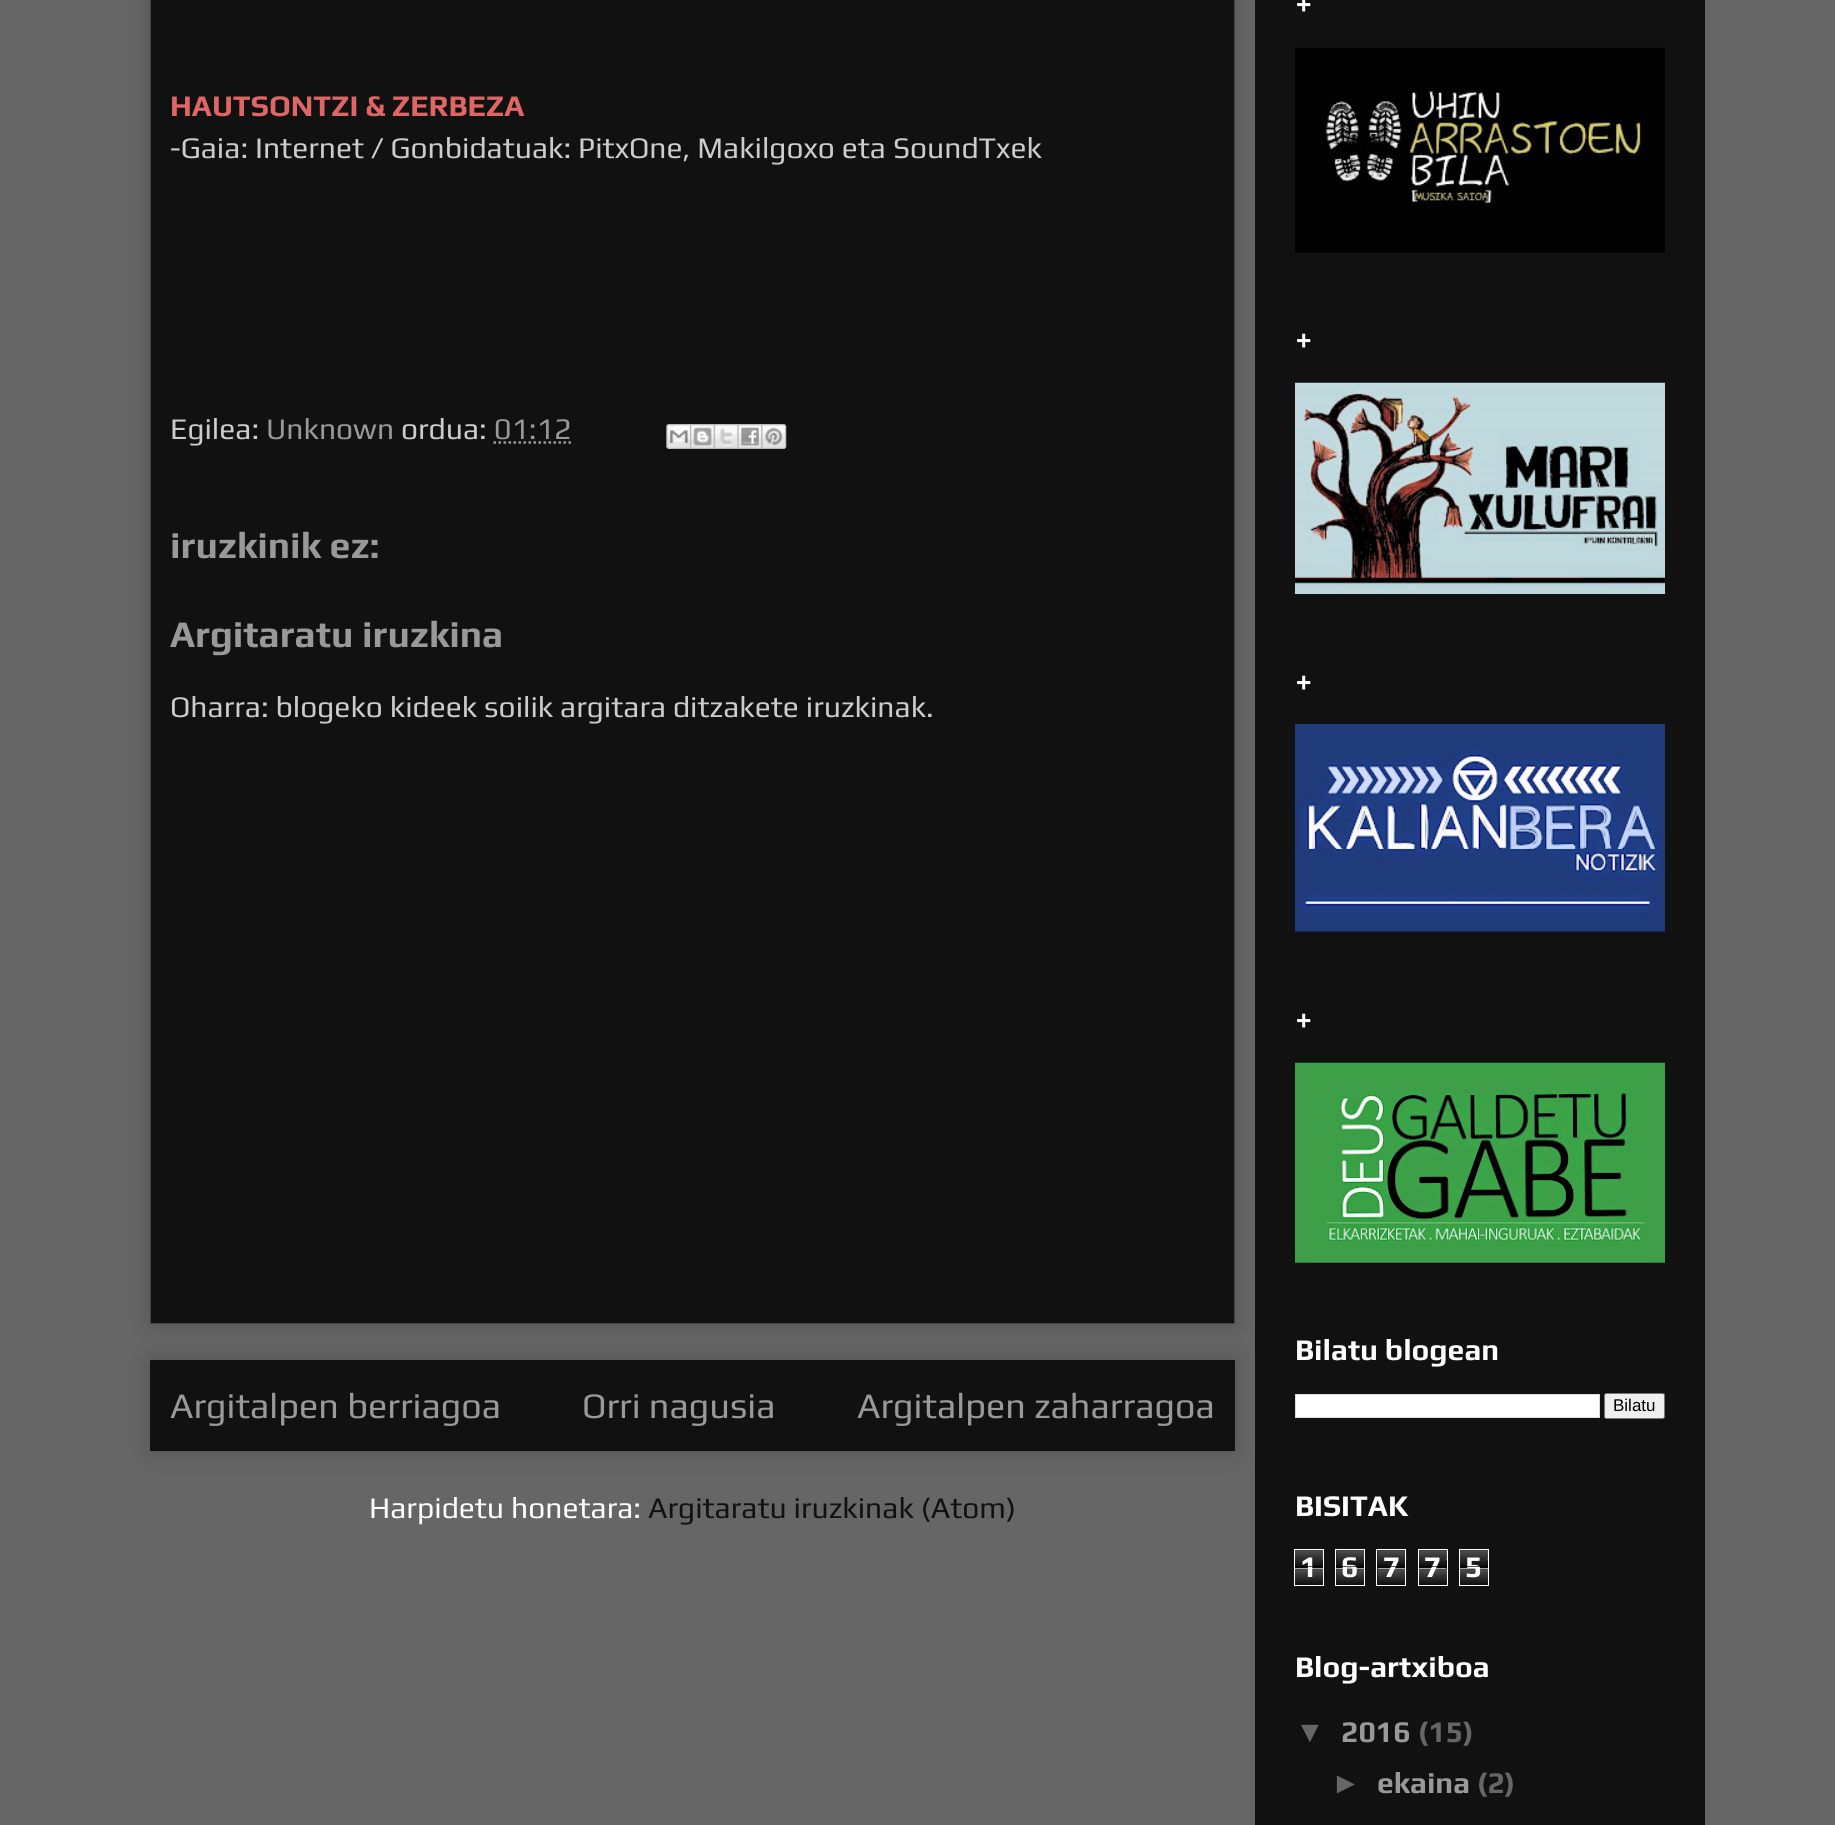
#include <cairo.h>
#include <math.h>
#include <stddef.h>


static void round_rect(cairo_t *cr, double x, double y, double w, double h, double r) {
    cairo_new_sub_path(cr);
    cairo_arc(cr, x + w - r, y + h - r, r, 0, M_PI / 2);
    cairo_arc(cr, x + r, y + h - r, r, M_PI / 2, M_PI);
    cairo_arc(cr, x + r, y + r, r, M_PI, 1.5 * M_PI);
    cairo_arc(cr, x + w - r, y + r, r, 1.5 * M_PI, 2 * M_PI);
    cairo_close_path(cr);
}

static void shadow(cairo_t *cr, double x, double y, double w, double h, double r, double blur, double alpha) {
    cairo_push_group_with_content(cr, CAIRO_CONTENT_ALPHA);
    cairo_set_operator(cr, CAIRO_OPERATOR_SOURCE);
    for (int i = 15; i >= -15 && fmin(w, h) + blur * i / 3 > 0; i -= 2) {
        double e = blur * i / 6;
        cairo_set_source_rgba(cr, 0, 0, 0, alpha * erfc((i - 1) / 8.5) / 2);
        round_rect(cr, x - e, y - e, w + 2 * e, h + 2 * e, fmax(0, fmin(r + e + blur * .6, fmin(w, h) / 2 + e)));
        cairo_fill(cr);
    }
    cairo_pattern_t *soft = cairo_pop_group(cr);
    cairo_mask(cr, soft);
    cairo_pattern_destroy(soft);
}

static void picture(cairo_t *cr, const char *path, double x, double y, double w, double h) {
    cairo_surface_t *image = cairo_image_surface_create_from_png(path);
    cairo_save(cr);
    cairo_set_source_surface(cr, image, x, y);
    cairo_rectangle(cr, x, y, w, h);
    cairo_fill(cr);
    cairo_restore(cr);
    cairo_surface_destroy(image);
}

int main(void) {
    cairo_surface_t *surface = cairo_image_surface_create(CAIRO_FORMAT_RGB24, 1835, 1825);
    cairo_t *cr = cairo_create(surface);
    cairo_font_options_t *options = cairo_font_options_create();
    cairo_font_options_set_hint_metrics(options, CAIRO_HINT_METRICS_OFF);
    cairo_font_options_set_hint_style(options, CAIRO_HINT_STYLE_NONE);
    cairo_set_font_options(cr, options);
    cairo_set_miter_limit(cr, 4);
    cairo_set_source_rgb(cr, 0.4, 0.4, 0.4);
    cairo_paint(cr);
    cairo_set_source_rgb(cr, 0, 0, 0);
    shadow(cr, 150, 1360, 1085, 91, 0, 12.5, 0.2);
    cairo_set_source_rgb(cr, 0.067, 0.067, 0.067);
    cairo_rectangle(cr, 150, 1360, 1085, 91);
    cairo_fill(cr);
    cairo_set_source_rgb(cr, 0, 0, 0);
    shadow(cr, 150, -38, 1085, 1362, 0, 12.5, 0.2);
    cairo_set_source_rgb(cr, 0.067, 0.067, 0.067);
    cairo_rectangle(cr, 150.5, -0.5, 1084, 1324);
    cairo_fill_preserve(cr);
    cairo_set_source_rgb(cr, 0.267, 0.267, 0.267);
    cairo_set_line_width(cr, 1);
    cairo_stroke(cr);
    cairo_select_font_face(cr, "Play", CAIRO_FONT_SLANT_NORMAL, CAIRO_FONT_WEIGHT_BOLD);
    cairo_set_font_size(cr, 30);
    cairo_set_source_rgb(cr, 0.878, 0.4, 0.4);
    cairo_move_to(cr, 170, 116);
    cairo_show_text(cr, "HAUTSONTZI & ZERBEZA");
    cairo_select_font_face(cr, "Play", CAIRO_FONT_SLANT_NORMAL, CAIRO_FONT_WEIGHT_NORMAL);
    cairo_set_source_rgb(cr, 0.8, 0.8, 0.8);
    cairo_move_to(cr, 170, 158);
    cairo_show_text(cr, "-Gaia: Internet / Gonbidatuak: PitxOne, Makilgoxo eta SoundTxek");
    cairo_move_to(cr, 170, 439);
    cairo_show_text(cr, "Egilea:");
    cairo_set_source_rgb(cr, 0.6, 0.6, 0.6);
    cairo_move_to(cr, 266, 439);
    cairo_show_text(cr, "Unknown");
    cairo_set_source_rgb(cr, 0.8, 0.8, 0.8);
    cairo_move_to(cr, 401, 439);
    cairo_show_text(cr, "ordua:");
    cairo_set_source_rgb(cr, 0.6, 0.6, 0.6);
    cairo_move_to(cr, 494, 439);
    cairo_show_text(cr, "01:12");
    cairo_new_path(cr);
    cairo_move_to(cr, 493.5, 442.5);
    cairo_line_to(cr, 571, 442.5);
    cairo_set_line_width(cr, 2.5);
    cairo_set_dash(cr, (double[]){2.5, 2.5}, 2, 0);
    cairo_stroke(cr);
    picture(cr, "img1.png", 666, 424, 24, 25);
    picture(cr, "img2.png", 690, 424, 24, 25);
    picture(cr, "img3.png", 713, 424, 25, 25);
    picture(cr, "img4.png", 737, 424, 25, 25);
    picture(cr, "img5.png", 761, 424, 26, 25);
    cairo_select_font_face(cr, "Play", CAIRO_FONT_SLANT_NORMAL, CAIRO_FONT_WEIGHT_BOLD);
    cairo_set_font_size(cr, 37.5);
    cairo_move_to(cr, 170, 558);
    cairo_show_text(cr, "iruzkinik ez:");
    cairo_move_to(cr, 170, 647);
    cairo_show_text(cr, "Argitaratu iruzkina");
    cairo_select_font_face(cr, "Play", CAIRO_FONT_SLANT_NORMAL, CAIRO_FONT_WEIGHT_NORMAL);
    cairo_set_font_size(cr, 30);
    cairo_set_source_rgb(cr, 0.8, 0.8, 0.8);
    cairo_move_to(cr, 170, 717);
    cairo_show_text(cr, "Oharra: blogeko kideek soilik argitara ditzakete iruzkinak.");
    cairo_set_font_size(cr, 36);
    cairo_set_source_rgb(cr, 0.6, 0.6, 0.6);
    cairo_move_to(cr, 170, 1418);
    cairo_show_text(cr, "Argitalpen berriagoa");
    cairo_move_to(cr, 582, 1418);
    cairo_show_text(cr, "Orri nagusia");
    cairo_move_to(cr, 857, 1418);
    cairo_show_text(cr, "Argitalpen zaharragoa");
    cairo_set_font_size(cr, 30);
    cairo_set_source_rgb(cr, 1, 1, 1);
    cairo_move_to(cr, 369, 1518);
    cairo_show_text(cr, "Harpidetu honetara:");
    cairo_set_source_rgb(cr, 0.067, 0.067, 0.067);
    cairo_move_to(cr, 648, 1518);
    cairo_show_text(cr, "Argitaratu iruzkinak (Atom)");
    cairo_rectangle(cr, 1255, 0, 450, 1825);
    cairo_fill(cr);
    cairo_select_font_face(cr, "Play", CAIRO_FONT_SLANT_NORMAL, CAIRO_FONT_WEIGHT_BOLD);
    cairo_set_source_rgb(cr, 1, 1, 1);
    cairo_move_to(cr, 1295, 14);
    cairo_show_text(cr, "+");
    picture(cr, "img6.png", 1295, 47, 370, 206);
    cairo_move_to(cr, 1295, 350);
    cairo_show_text(cr, "+");
    picture(cr, "img7.png", 1295, 382, 370, 212);
    cairo_move_to(cr, 1295, 692);
    cairo_show_text(cr, "+");
    picture(cr, "img8.png", 1295, 724, 370, 208);
    cairo_move_to(cr, 1295, 1030);
    cairo_show_text(cr, "+");
    picture(cr, "img9.png", 1295, 1062, 370, 201);
    cairo_move_to(cr, 1295, 1360);
    cairo_show_text(cr, "Bilatu blogean");
    cairo_rectangle(cr, 1295.5, 1394.5, 304, 23);
    cairo_fill_preserve(cr);
    cairo_set_source_rgb(cr, 0.867, 0.867, 0.867);
    cairo_set_line_width(cr, 1);
    cairo_set_dash(cr, NULL, 0, 0);
    cairo_stroke(cr);
    cairo_set_source_rgb(cr, 0.937, 0.937, 0.937);
    round_rect(cr, 1604.5, 1393.5, 60, 25, 2);
    cairo_fill_preserve(cr);
    cairo_set_source_rgb(cr, 0.463, 0.463, 0.463);
    cairo_stroke(cr);
    cairo_select_font_face(cr, "Liberation Sans", CAIRO_FONT_SLANT_NORMAL, CAIRO_FONT_WEIGHT_NORMAL);
    cairo_set_font_size(cr, 17);
    cairo_set_source_rgb(cr, 0, 0, 0);
    cairo_move_to(cr, 1613, 1411);
    cairo_show_text(cr, "Bilatu");
    cairo_select_font_face(cr, "Play", CAIRO_FONT_SLANT_NORMAL, CAIRO_FONT_WEIGHT_BOLD);
    cairo_set_font_size(cr, 30);
    cairo_set_source_rgb(cr, 1, 1, 1);
    cairo_move_to(cr, 1295, 1516);
    cairo_show_text(cr, "BISITAK");
    picture(cr, "img10.png", 1295, 1550, 28, 35);
    cairo_rectangle(cr, 1294.5, 1549.5, 29, 36);
    cairo_stroke(cr);
    cairo_move_to(cr, 1300, 1577);
    cairo_show_text(cr, "1");
    cairo_set_source_rgba(cr, 0, 0, 0, 0.65);
    cairo_rectangle(cr, 1295, 1566, 28, 1);
    cairo_fill(cr);
    cairo_set_source_rgba(cr, 1, 1, 1, 0.65);
    cairo_rectangle(cr, 1295, 1568, 28, 1);
    cairo_fill(cr);
    picture(cr, "img11.png", 1336, 1550, 28, 35);
    cairo_rectangle(cr, 1335.5, 1549.5, 29, 36);
    cairo_set_source_rgb(cr, 1, 1, 1);
    cairo_stroke(cr);
    cairo_move_to(cr, 1341, 1577);
    cairo_show_text(cr, "6");
    cairo_set_source_rgba(cr, 0, 0, 0, 0.65);
    cairo_rectangle(cr, 1336, 1566, 28, 1);
    cairo_fill(cr);
    cairo_set_source_rgba(cr, 1, 1, 1, 0.65);
    cairo_rectangle(cr, 1336, 1568, 28, 1);
    cairo_fill(cr);
    picture(cr, "img12.png", 1377, 1550, 30, 36);
    cairo_rectangle(cr, 1376.5, 1549.5, 29, 36);
    cairo_set_source_rgb(cr, 1, 1, 1);
    cairo_stroke(cr);
    cairo_move_to(cr, 1383, 1577);
    cairo_show_text(cr, "7");
    cairo_set_source_rgba(cr, 0, 0, 0, 0.65);
    cairo_rectangle(cr, 1378, 1566, 27, 1);
    cairo_fill(cr);
    cairo_set_source_rgba(cr, 1, 1, 1, 0.65);
    cairo_rectangle(cr, 1378, 1568, 27, 1);
    cairo_fill(cr);
    picture(cr, "img13.png", 1419, 1550, 28, 35);
    cairo_rectangle(cr, 1418.5, 1549.5, 29, 36);
    cairo_set_source_rgb(cr, 1, 1, 1);
    cairo_stroke(cr);
    cairo_move_to(cr, 1424, 1577);
    cairo_show_text(cr, "7");
    cairo_set_source_rgba(cr, 0, 0, 0, 0.65);
    cairo_rectangle(cr, 1419, 1566, 27, 1);
    cairo_fill(cr);
    cairo_set_source_rgba(cr, 1, 1, 1, 0.65);
    cairo_rectangle(cr, 1419, 1568, 27, 1);
    cairo_fill(cr);
    picture(cr, "img14.png", 1460, 1550, 28, 35);
    cairo_rectangle(cr, 1459.5, 1549.5, 29, 36);
    cairo_set_source_rgb(cr, 1, 1, 1);
    cairo_stroke(cr);
    cairo_move_to(cr, 1465, 1577);
    cairo_show_text(cr, "5");
    cairo_set_source_rgba(cr, 0, 0, 0, 0.65);
    cairo_rectangle(cr, 1460, 1566, 28, 1);
    cairo_fill(cr);
    cairo_set_source_rgba(cr, 1, 1, 1, 0.65);
    cairo_rectangle(cr, 1460, 1568, 28, 1);
    cairo_fill(cr);
    cairo_set_source_rgb(cr, 1, 1, 1);
    cairo_move_to(cr, 1295, 1677);
    cairo_show_text(cr, "Blog-artxiboa");
    cairo_select_font_face(cr, "Liberation Sans", CAIRO_FONT_SLANT_NORMAL, CAIRO_FONT_WEIGHT_BOLD);
    cairo_set_source_rgb(cr, 0.4, 0.4, 0.4);
    cairo_move_to(cr, 1295, 1742);
    cairo_show_text(cr, "▼");
    cairo_select_font_face(cr, "Play", CAIRO_FONT_SLANT_NORMAL, CAIRO_FONT_WEIGHT_BOLD);
    cairo_set_source_rgb(cr, 0.6, 0.6, 0.6);
    cairo_move_to(cr, 1341, 1742);
    cairo_show_text(cr, "2016");
    cairo_set_source_rgb(cr, 0.4, 0.4, 0.4);
    cairo_move_to(cr, 1418, 1742);
    cairo_show_text(cr, "(15)");
    cairo_select_font_face(cr, "Liberation Sans", CAIRO_FONT_SLANT_NORMAL, CAIRO_FONT_WEIGHT_BOLD);
    cairo_move_to(cr, 1331, 1793);
    cairo_show_text(cr, "►");
    cairo_select_font_face(cr, "Play", CAIRO_FONT_SLANT_NORMAL, CAIRO_FONT_WEIGHT_BOLD);
    cairo_set_source_rgb(cr, 0.6, 0.6, 0.6);
    cairo_move_to(cr, 1377, 1793);
    cairo_show_text(cr, "ekaina");
    cairo_set_source_rgb(cr, 0.4, 0.4, 0.4);
    cairo_move_to(cr, 1477, 1793);
    cairo_show_text(cr, "(2)");
    cairo_surface_write_to_png(surface, "page.png");
    cairo_font_options_destroy(options);
    cairo_destroy(cr);
    cairo_surface_destroy(surface);
    return 0;
}
